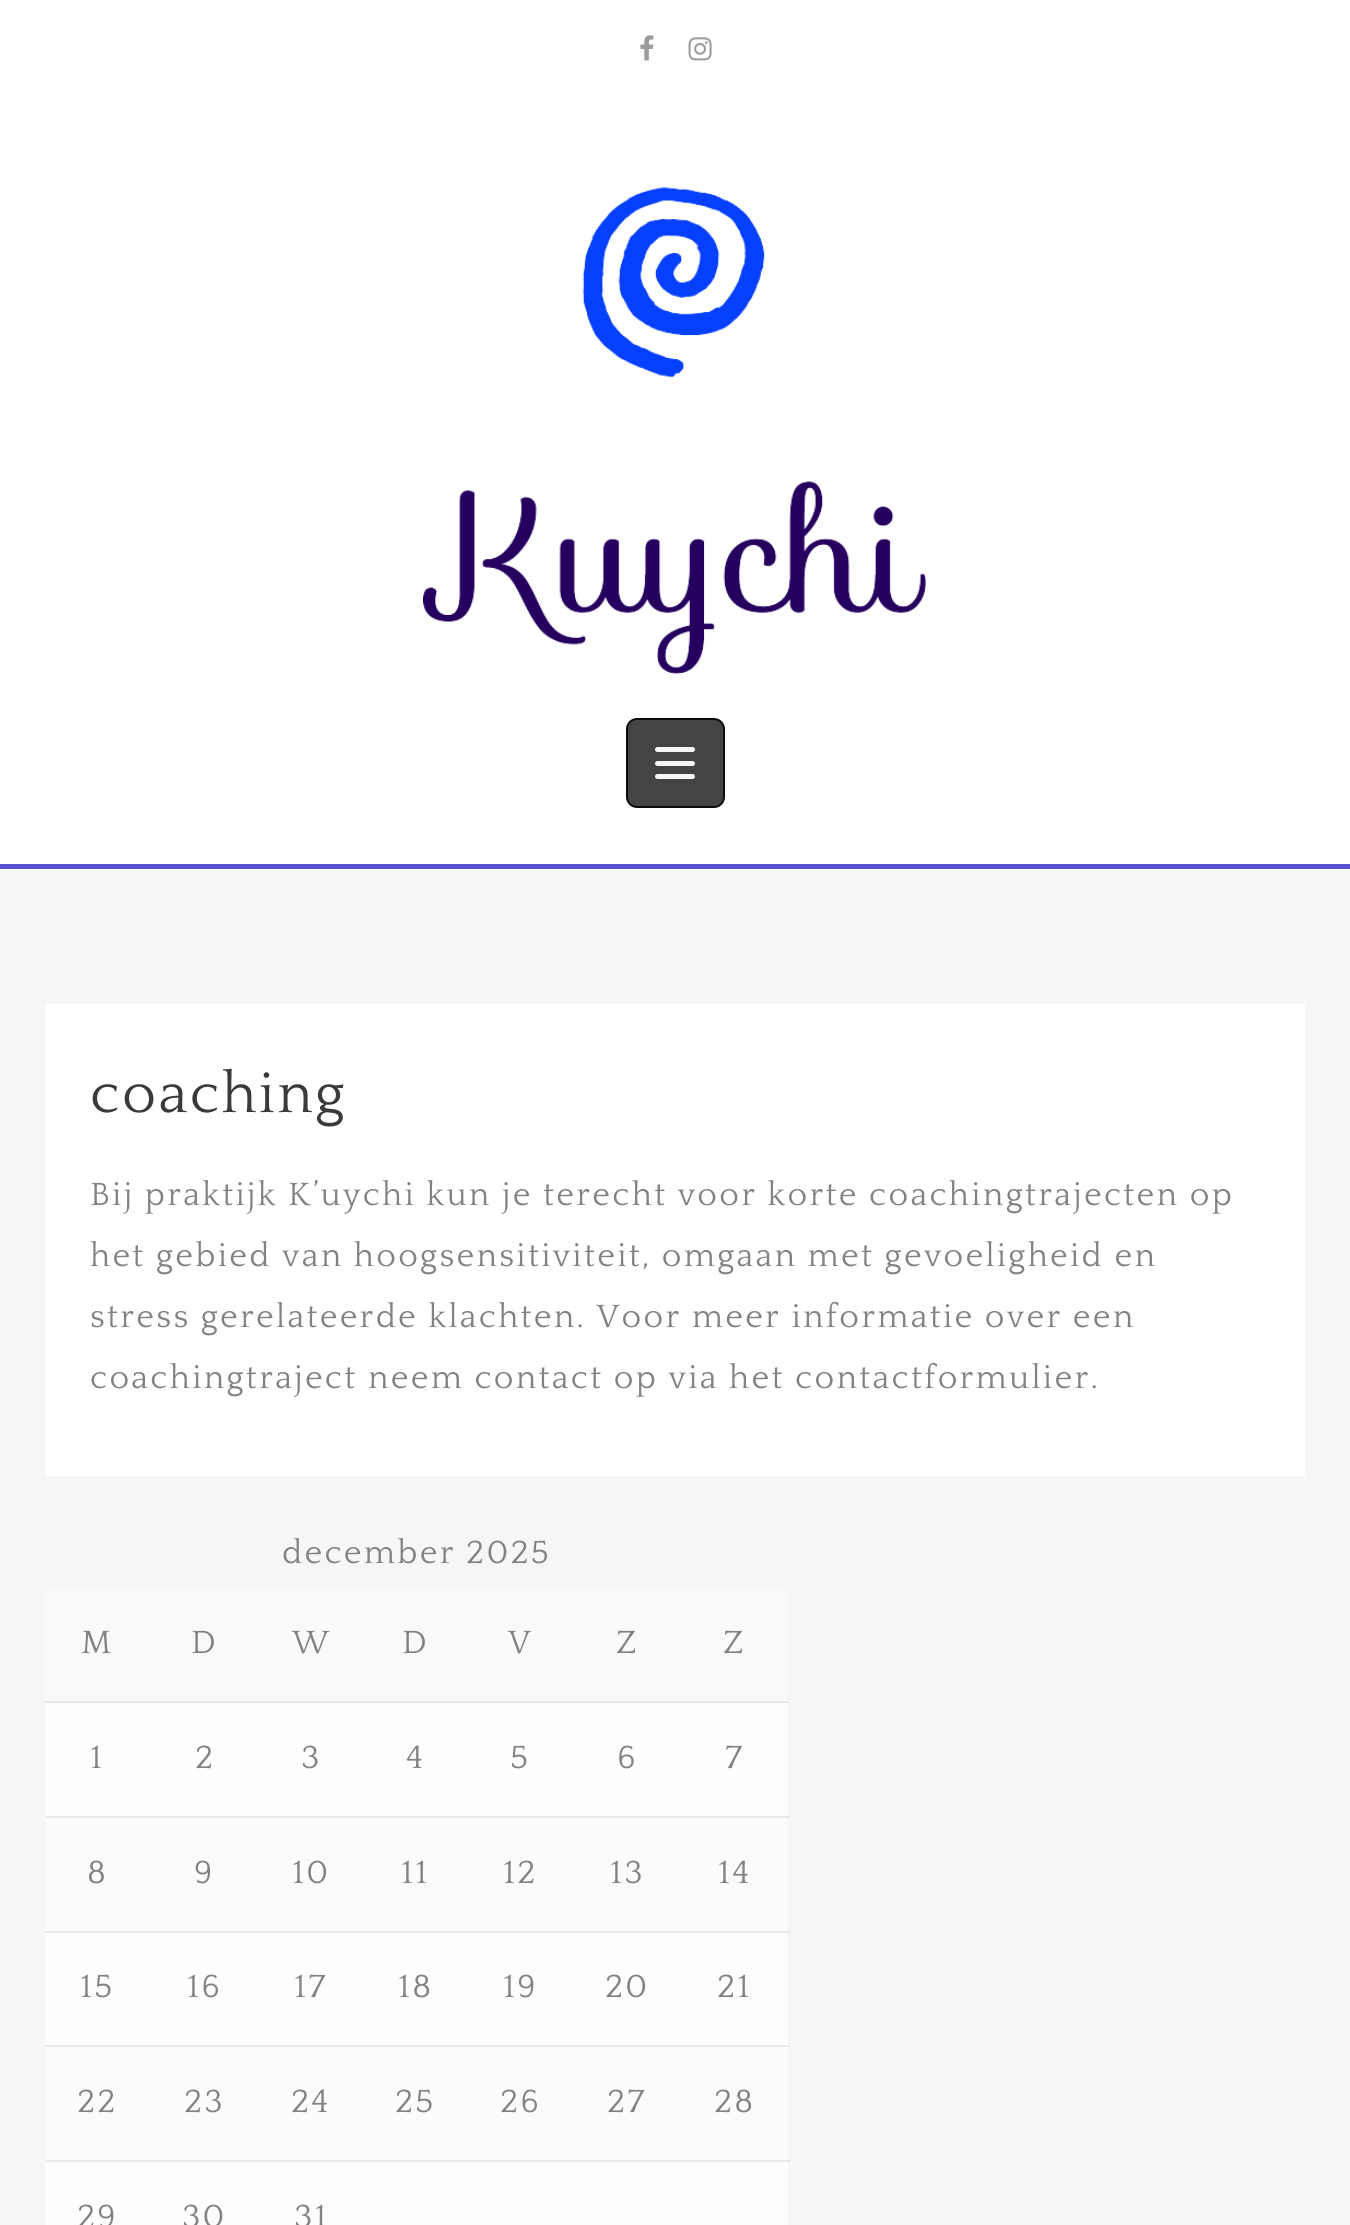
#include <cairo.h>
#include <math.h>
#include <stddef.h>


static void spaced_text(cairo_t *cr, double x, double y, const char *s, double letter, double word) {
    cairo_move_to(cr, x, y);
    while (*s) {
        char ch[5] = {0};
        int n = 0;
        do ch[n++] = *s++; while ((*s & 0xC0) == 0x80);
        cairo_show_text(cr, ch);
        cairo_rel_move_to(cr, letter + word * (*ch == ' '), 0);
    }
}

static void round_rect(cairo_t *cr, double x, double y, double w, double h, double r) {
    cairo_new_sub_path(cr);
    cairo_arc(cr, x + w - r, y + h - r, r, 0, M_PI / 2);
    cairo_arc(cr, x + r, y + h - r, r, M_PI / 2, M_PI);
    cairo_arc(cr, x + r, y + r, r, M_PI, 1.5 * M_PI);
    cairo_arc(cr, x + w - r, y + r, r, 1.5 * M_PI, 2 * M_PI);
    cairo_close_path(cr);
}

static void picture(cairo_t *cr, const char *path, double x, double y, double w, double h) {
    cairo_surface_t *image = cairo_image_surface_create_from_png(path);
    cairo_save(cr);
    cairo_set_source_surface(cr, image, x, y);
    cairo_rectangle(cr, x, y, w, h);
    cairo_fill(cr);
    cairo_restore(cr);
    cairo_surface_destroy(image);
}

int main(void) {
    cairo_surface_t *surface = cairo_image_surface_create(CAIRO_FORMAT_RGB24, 1350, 2225);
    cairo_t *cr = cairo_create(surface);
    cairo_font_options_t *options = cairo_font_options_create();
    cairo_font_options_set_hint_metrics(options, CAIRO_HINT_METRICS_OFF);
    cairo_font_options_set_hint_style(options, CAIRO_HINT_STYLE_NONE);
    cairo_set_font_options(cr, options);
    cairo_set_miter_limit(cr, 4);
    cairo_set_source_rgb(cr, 0.961, 0.961, 0.961);
    cairo_paint(cr);
    cairo_set_source_rgb(cr, 1, 1, 1);
    cairo_rectangle(cr, 0, 0, 1350, 864);
    cairo_fill(cr);
    picture(cr, "img1.png", 640, 35, 14, 26);
    picture(cr, "img2.png", 688, 37, 24, 24);
    cairo_set_source_rgb(cr, 0.345, 0.329, 0.816);
    cairo_rectangle(cr, 0, 864, 1350, 5);
    cairo_fill(cr);
    picture(cr, "img3.png", 423, 187, 504, 488);
    cairo_set_source_rgb(cr, 0.267, 0.267, 0.267);
    round_rect(cr, 627, 719, 97, 88, 10);
    cairo_fill_preserve(cr);
    cairo_set_source_rgb(cr, 0.047, 0.047, 0.047);
    cairo_stroke(cr);
    cairo_set_source_rgb(cr, 0.961, 0.961, 0.961);
    round_rect(cr, 655, 747, 40, 5, 2.5);
    cairo_fill(cr);
    round_rect(cr, 655, 761, 40, 5, 2.5);
    cairo_fill(cr);
    round_rect(cr, 655, 774, 40, 5, 2.5);
    cairo_fill(cr);
    cairo_set_source_rgb(cr, 1, 1, 1);
    cairo_rectangle(cr, 45, 1004, 1260, 472);
    cairo_fill(cr);
    cairo_select_font_face(cr, "Quattrocento", CAIRO_FONT_SLANT_NORMAL, CAIRO_FONT_WEIGHT_NORMAL);
    cairo_set_font_size(cr, 58.5);
    cairo_set_source_rgb(cr, 0.227, 0.227, 0.227);
    spaced_text(cr, 90, 1112, "coaching", 2.25, 0);
    cairo_set_font_size(cr, 33.75);
    cairo_set_source_rgb(cr, 0.502, 0.51, 0.522);
    spaced_text(cr, 90, 1205, "Bij praktijk K’uychi kun je terecht voor korte coachingtrajecten op", 2.25, 0);
    spaced_text(cr, 90, 1266, "het gebied van hoogsensitiviteit, omgaan met gevoeligheid en", 2.25, 0);
    spaced_text(cr, 90, 1327, "stress gerelateerde klachten. Voor meer informatie over een", 2.25, 0);
    spaced_text(cr, 90, 1388, "coachingtraject neem contact op via het contactformulier.", 2.25, 0);
    spaced_text(cr, 282, 1563, "december 2025", 2.25, 0);
    cairo_set_source_rgb(cr, 0.973, 0.973, 0.973);
    cairo_rectangle(cr, 45, 1589, 743, 112);
    cairo_fill(cr);
    cairo_set_source_rgb(cr, 0.502, 0.51, 0.522);
    spaced_text(cr, 81, 1653, "M", 2.25, 0);
    spaced_text(cr, 191, 1653, "D", 2.25, 0);
    spaced_text(cr, 292, 1653, "W", 2.25, 0);
    spaced_text(cr, 402, 1653, "D", 2.25, 0);
    spaced_text(cr, 508, 1653, "V", 2.25, 0);
    spaced_text(cr, 616, 1653, "Z", 2.25, 0);
    cairo_set_source_rgb(cr, 0.914, 0.914, 0.914);
    cairo_rectangle(cr, 45, 1701, 745, 2);
    cairo_fill(cr);
    cairo_set_source_rgb(cr, 0.502, 0.51, 0.522);
    spaced_text(cr, 723, 1653, "Z", 2.25, 0);
    cairo_set_source_rgb(cr, 0.992, 0.992, 0.992);
    cairo_rectangle(cr, 45, 1703, 743, 113);
    cairo_fill(cr);
    cairo_set_source_rgb(cr, 0.502, 0.51, 0.522);
    spaced_text(cr, 90, 1768, "1", 2.25, 0);
    spaced_text(cr, 195, 1768, "2", 2.25, 0);
    spaced_text(cr, 301, 1768, "3", 2.25, 0);
    spaced_text(cr, 406, 1768, "4", 2.25, 0);
    spaced_text(cr, 510, 1768, "5", 2.25, 0);
    spaced_text(cr, 617, 1768, "6", 2.25, 0);
    cairo_set_source_rgb(cr, 0.914, 0.914, 0.914);
    cairo_rectangle(cr, 45, 1816, 745, 2);
    cairo_fill(cr);
    cairo_set_source_rgb(cr, 0.502, 0.51, 0.522);
    spaced_text(cr, 725, 1768, "7", 2.25, 0);
    cairo_set_source_rgb(cr, 0.984, 0.984, 0.984);
    cairo_rectangle(cr, 45, 1818, 743, 113);
    cairo_fill(cr);
    cairo_set_source_rgb(cr, 0.502, 0.51, 0.522);
    spaced_text(cr, 87, 1883, "8", 2.25, 0);
    spaced_text(cr, 194, 1883, "9", 2.25, 0);
    spaced_text(cr, 292, 1883, "10", 2.25, 0);
    spaced_text(cr, 401, 1883, "11", 2.25, 0);
    spaced_text(cr, 503, 1883, "12", 2.25, 0);
    spaced_text(cr, 610, 1883, "13", 2.25, 0);
    cairo_set_source_rgb(cr, 0.914, 0.914, 0.914);
    cairo_rectangle(cr, 45, 1931, 745, 2);
    cairo_fill(cr);
    cairo_set_source_rgb(cr, 0.502, 0.51, 0.522);
    spaced_text(cr, 718, 1883, "14", 2.25, 0);
    cairo_set_source_rgb(cr, 0.992, 0.992, 0.992);
    cairo_rectangle(cr, 45, 1933, 743, 112);
    cairo_fill(cr);
    cairo_set_source_rgb(cr, 0.502, 0.51, 0.522);
    spaced_text(cr, 80, 1997, "15", 2.25, 0);
    spaced_text(cr, 187, 1997, "16", 2.25, 0);
    spaced_text(cr, 294, 1997, "17", 2.25, 0);
    spaced_text(cr, 398, 1997, "18", 2.25, 0);
    spaced_text(cr, 503, 1997, "19", 2.25, 0);
    spaced_text(cr, 605, 1997, "20", 2.25, 0);
    cairo_set_source_rgb(cr, 0.914, 0.914, 0.914);
    cairo_rectangle(cr, 45, 2045, 745, 2);
    cairo_fill(cr);
    cairo_set_source_rgb(cr, 0.502, 0.51, 0.522);
    spaced_text(cr, 717, 1997, "21", 2.25, 0);
    cairo_set_source_rgb(cr, 0.984, 0.984, 0.984);
    cairo_rectangle(cr, 45, 2047, 743, 113);
    cairo_fill(cr);
    cairo_set_source_rgb(cr, 0.502, 0.51, 0.522);
    spaced_text(cr, 77, 2112, "22", 2.25, 0);
    spaced_text(cr, 184, 2112, "23", 2.25, 0);
    spaced_text(cr, 291, 2112, "24", 2.25, 0);
    spaced_text(cr, 395, 2112, "25", 2.25, 0);
    spaced_text(cr, 500, 2112, "26", 2.25, 0);
    spaced_text(cr, 607, 2112, "27", 2.25, 0);
    cairo_set_source_rgb(cr, 0.914, 0.914, 0.914);
    cairo_rectangle(cr, 45, 2160, 745, 2);
    cairo_fill(cr);
    cairo_set_source_rgb(cr, 0.502, 0.51, 0.522);
    spaced_text(cr, 714, 2112, "28", 2.25, 0);
    cairo_set_source_rgb(cr, 0.992, 0.992, 0.992);
    cairo_rectangle(cr, 45, 2162, 743, 63);
    cairo_fill(cr);
    cairo_set_source_rgb(cr, 0.502, 0.51, 0.522);
    spaced_text(cr, 77, 2227, "29", 2.25, 0);
    spaced_text(cr, 182, 2227, "30", 2.25, 0);
    spaced_text(cr, 294, 2227, "31", 2.25, 0);
    cairo_surface_write_to_png(surface, "page.png");
    cairo_font_options_destroy(options);
    cairo_destroy(cr);
    cairo_surface_destroy(surface);
    return 0;
}
